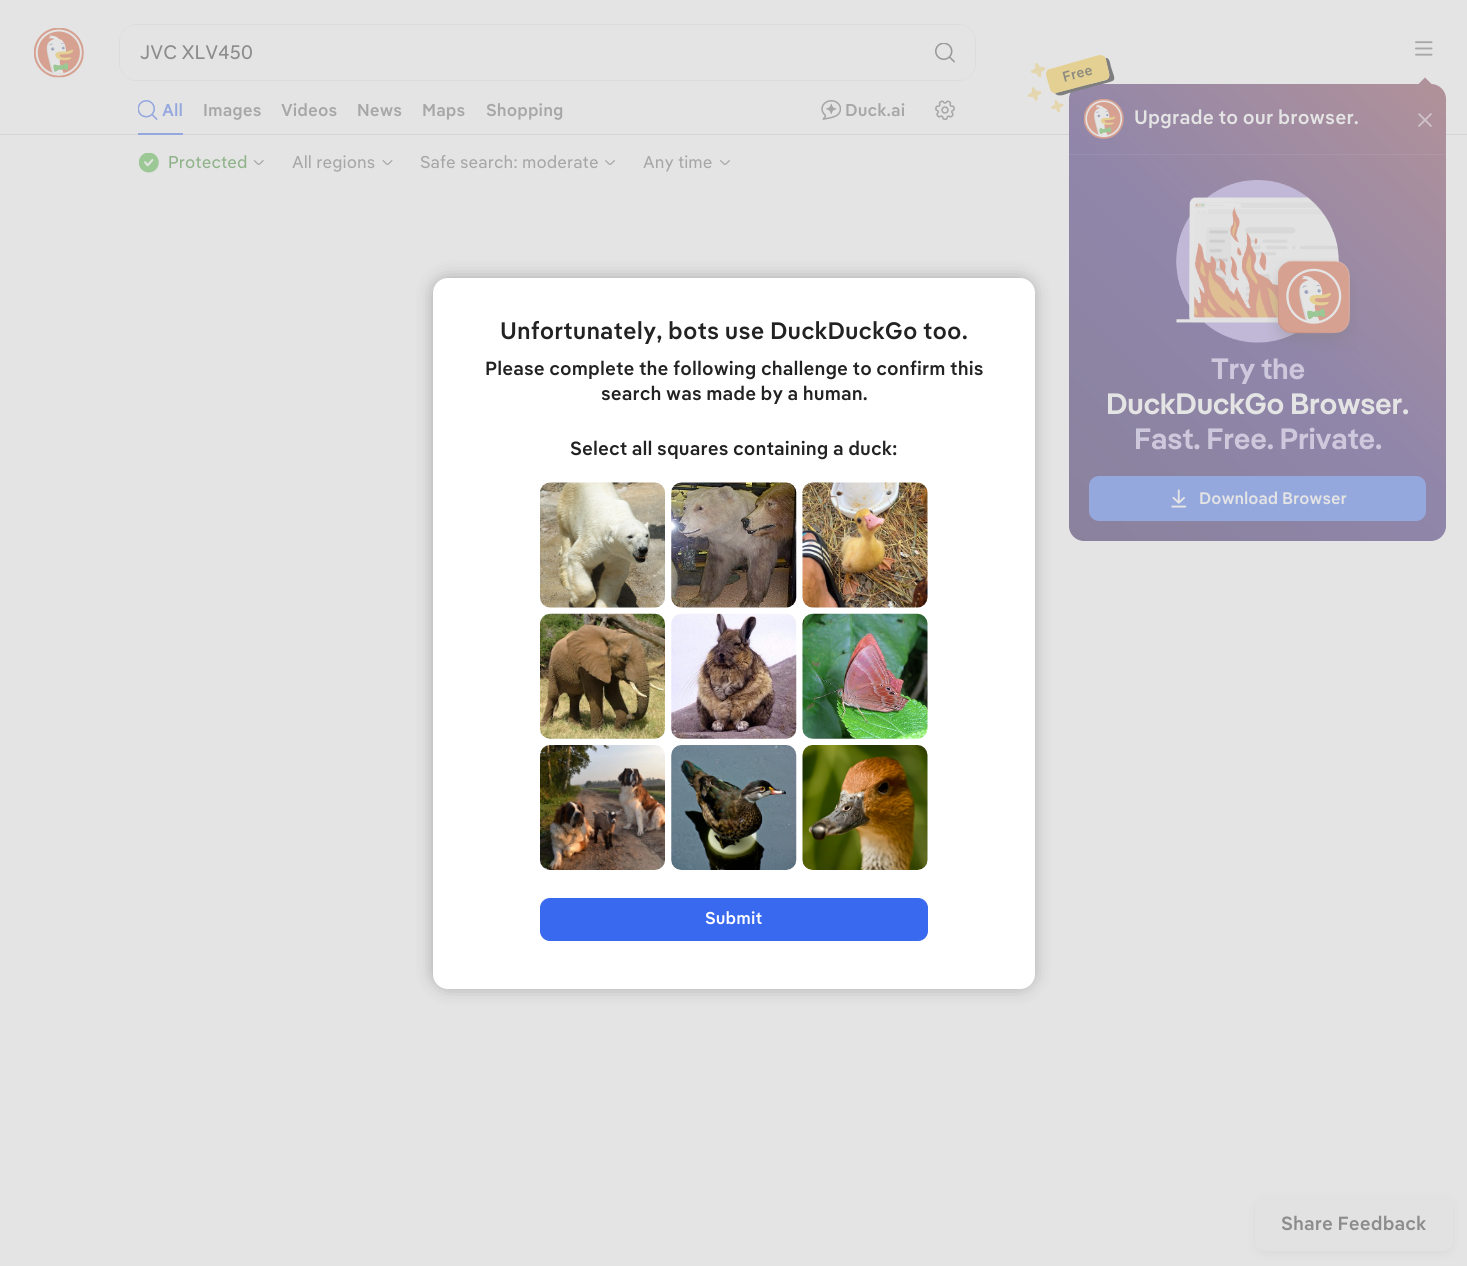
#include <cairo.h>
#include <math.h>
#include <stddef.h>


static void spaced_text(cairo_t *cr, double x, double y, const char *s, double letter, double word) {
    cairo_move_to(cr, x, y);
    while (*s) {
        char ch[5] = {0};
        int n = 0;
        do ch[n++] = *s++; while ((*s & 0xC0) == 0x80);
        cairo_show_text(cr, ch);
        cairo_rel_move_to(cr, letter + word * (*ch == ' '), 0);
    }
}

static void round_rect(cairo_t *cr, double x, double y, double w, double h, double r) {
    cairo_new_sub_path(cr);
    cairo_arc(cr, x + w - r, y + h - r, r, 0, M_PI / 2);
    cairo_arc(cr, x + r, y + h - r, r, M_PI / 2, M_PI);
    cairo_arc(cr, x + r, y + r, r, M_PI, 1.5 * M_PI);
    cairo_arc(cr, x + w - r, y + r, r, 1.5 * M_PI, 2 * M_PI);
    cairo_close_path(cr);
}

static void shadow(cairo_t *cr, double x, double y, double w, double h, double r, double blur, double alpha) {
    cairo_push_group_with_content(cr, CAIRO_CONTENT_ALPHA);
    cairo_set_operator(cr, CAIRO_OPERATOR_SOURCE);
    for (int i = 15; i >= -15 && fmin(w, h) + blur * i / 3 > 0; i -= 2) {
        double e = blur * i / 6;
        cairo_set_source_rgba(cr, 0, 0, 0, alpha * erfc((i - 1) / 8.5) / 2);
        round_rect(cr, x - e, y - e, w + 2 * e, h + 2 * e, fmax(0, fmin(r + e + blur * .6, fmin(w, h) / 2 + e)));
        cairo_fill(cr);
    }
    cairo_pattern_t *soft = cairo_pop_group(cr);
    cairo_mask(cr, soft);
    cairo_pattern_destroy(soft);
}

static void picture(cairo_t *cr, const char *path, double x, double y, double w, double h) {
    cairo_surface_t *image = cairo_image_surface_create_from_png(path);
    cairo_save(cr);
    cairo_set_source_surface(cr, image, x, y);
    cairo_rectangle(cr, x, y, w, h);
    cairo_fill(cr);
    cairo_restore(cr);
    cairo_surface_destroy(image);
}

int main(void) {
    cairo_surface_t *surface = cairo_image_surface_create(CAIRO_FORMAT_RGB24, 1467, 1266);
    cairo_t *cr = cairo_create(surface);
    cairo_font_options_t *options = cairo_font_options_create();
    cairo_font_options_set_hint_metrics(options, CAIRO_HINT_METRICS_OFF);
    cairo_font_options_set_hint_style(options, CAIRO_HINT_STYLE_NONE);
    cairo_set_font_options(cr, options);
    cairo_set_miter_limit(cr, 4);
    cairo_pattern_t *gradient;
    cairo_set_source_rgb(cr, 0.894, 0.894, 0.894);
    cairo_paint(cr);
    cairo_set_source_rgb(cr, 0.835, 0.835, 0.835);
    cairo_new_path(cr);
    cairo_move_to(cr, 0, 134);
    cairo_line_to(cr, 0, 135);
    cairo_line_to(cr, 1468, 135);
    cairo_line_to(cr, 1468, 1);
    cairo_line_to(cr, 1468, 134);
    cairo_close_path(cr);
    cairo_fill(cr);
    picture(cr, "img1.png", 34, 28, 50, 50);
    round_rect(cr, 119.5, 24.5, 856, 56, 17.5);
    cairo_set_source_rgba(cr, 0.494, 0.494, 0.494, 0.08);
    cairo_set_line_width(cr, 1);
    cairo_stroke(cr);
    cairo_set_source_rgb(cr, 0.894, 0.894, 0.894);
    round_rect(cr, 120, 25, 855, 55, 16);
    cairo_fill(cr);
    cairo_select_font_face(cr, "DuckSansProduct", CAIRO_FONT_SLANT_NORMAL, CAIRO_FONT_WEIGHT_NORMAL);
    cairo_set_font_size(cr, 20.5);
    cairo_set_source_rgb(cr, 0.549, 0.549, 0.549);
    spaced_text(cr, 140, 59, "JVC XLV450", 0.1, 0);
    picture(cr, "img2.png", 935, 43, 20, 20);
    picture(cr, "img3.png", 1415, 41, 18, 15);
    gradient = cairo_pattern_create_linear(916, 667, 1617, -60);
    cairo_pattern_add_color_stop_rgba(gradient, 0, 0.522, 0.498, 0.58, 1);
    cairo_pattern_add_color_stop_rgba(gradient, 0.48, 0.565, 0.525, 0.667, 1);
    cairo_pattern_add_color_stop_rgba(gradient, 1, 0.788, 0.604, 0.553, 1);
    cairo_set_source(cr, gradient);
    cairo_pattern_destroy(gradient);
    round_rect(cr, 1069, 84, 377, 457, 15);
    cairo_fill(cr);
    gradient = cairo_pattern_create_linear(916, 667, 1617, -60);
    cairo_pattern_add_color_stop_rgba(gradient, 0, 0.553, 0.533, 0.608, 1);
    cairo_pattern_add_color_stop_rgba(gradient, 0.48, 0.592, 0.557, 0.69, 1);
    cairo_pattern_add_color_stop_rgba(gradient, 1, 0.8, 0.631, 0.584, 1);
    cairo_set_source(cr, gradient);
    cairo_pattern_destroy(gradient);
    cairo_rectangle(cr, 1069, 154, 377, 1);
    cairo_fill(cr);
    picture(cr, "img4.png", 1027, 62, 37, 51);
    cairo_set_source_rgb(cr, 0.494, 0.494, 0.494);
    cairo_new_path(cr);
    cairo_move_to(cr, 1055, 93);
    cairo_curve_to(cr, 1058, 98, 1066, 94, 1069, 93);
    cairo_line_to(cr, 1102, 84);
    cairo_curve_to(cr, 1117, 80, 1116, 82, 1111, 67);
    cairo_curve_to(cr, 1110, 64, 1110, 57, 1105, 58);
    cairo_line_to(cr, 1108, 69);
    cairo_curve_to(cr, 1109, 72, 1111, 78, 1106, 80);
    cairo_close_path(cr);
    cairo_fill(cr);
    cairo_set_source_rgb(cr, 0.894, 0.816, 0.573);
    cairo_new_path(cr);
    cairo_move_to(cr, 1050, 69);
    cairo_line_to(cr, 1099, 55);
    cairo_curve_to(cr, 1102, 55, 1105, 56, 1106, 59);
    cairo_line_to(cr, 1109, 73);
    cairo_curve_to(cr, 1110, 76, 1109, 79, 1106, 80);
    cairo_line_to(cr, 1056, 93);
    cairo_curve_to(cr, 1054, 94, 1051, 92, 1050, 89);
    cairo_line_to(cr, 1046, 75);
    cairo_curve_to(cr, 1046, 72, 1047, 69, 1050, 69);
    cairo_close_path(cr);
    cairo_fill(cr);
    cairo_select_font_face(cr, "DuckSansProduct", CAIRO_FONT_SLANT_NORMAL, CAIRO_FONT_WEIGHT_BOLD);
    cairo_set_font_size(cr, 15);
    cairo_set_source_rgb(cr, 0.557, 0.545, 0.506);
    cairo_save(cr);
    cairo_translate(cr, 1064, 82);
    cairo_rotate(cr, -15 * M_PI / 180);
    spaced_text(cr, 0, 0, "Free", 0.1, 0);
    cairo_restore(cr);
    picture(cr, "img5.png", 1084, 99, 40, 40);
    cairo_set_font_size(cr, 20.5);
    cairo_set_source_rgb(cr, 0.894, 0.894, 0.894);
    spaced_text(cr, 1134, 124, "Upgrade to our browser.", 0.1, 0);
    picture(cr, "img6.png", 1176, 180, 163, 163);
    picture(cr, "img7.png", 1267, 258, 91, 94);
    picture(cr, "img8.png", 1286, 268, 56, 56);
    cairo_select_font_face(cr, "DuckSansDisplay", CAIRO_FONT_SLANT_NORMAL, CAIRO_FONT_WEIGHT_BOLD);
    cairo_set_font_size(cr, 30.9);
    cairo_set_source_rgb(cr, 0.808, 0.784, 0.867);
    spaced_text(cr, 1211, 379, "Try the", -0.25, 0);
    cairo_set_source_rgb(cr, 0.894, 0.894, 0.894);
    spaced_text(cr, 1106, 414, "DuckDuckGo Browser.", -0.25, 0);
    cairo_set_source_rgb(cr, 0.808, 0.784, 0.867);
    spaced_text(cr, 1134, 449, "Fast. Free. Private.", -0.25, 0);
    cairo_set_source_rgb(cr, 0.584, 0.659, 0.871);
    round_rect(cr, 1089, 476, 337, 45, 10);
    cairo_fill(cr);
    picture(cr, "img9.png", 1171, 489, 16, 19);
    cairo_select_font_face(cr, "DuckSansProduct", CAIRO_FONT_SLANT_NORMAL, CAIRO_FONT_WEIGHT_BOLD);
    cairo_set_font_size(cr, 17.5);
    cairo_set_source_rgb(cr, 0.894, 0.894, 0.894);
    cairo_move_to(cr, 1199, 504);
    cairo_show_text(cr, "Download Browser");
    cairo_set_source_rgb(cr, 0.682, 0.569, 0.608);
    cairo_new_path(cr);
    cairo_move_to(cr, 1432.5, 85);
    cairo_line_to(cr, 1417.5, 85);
    cairo_line_to(cr, 1425, 77.5);
    cairo_close_path(cr);
    cairo_fill(cr);
    picture(cr, "img10.png", 1418, 113, 14, 14);
    picture(cr, "img11.png", 138, 100, 20, 20);
    cairo_set_font_size(cr, 18);
    cairo_set_source_rgb(cr, 0.584, 0.659, 0.871);
    spaced_text(cr, 162, 116, "All", 0.1, 0);
    cairo_rectangle(cr, 138, 133, 45, 2);
    cairo_fill(cr);
    cairo_set_source_rgb(cr, 0.655, 0.655, 0.655);
    spaced_text(cr, 203, 116, "Images", 0.1, 0);
    spaced_text(cr, 281, 116, "Videos", 0.1, 0);
    spaced_text(cr, 357, 116, "News", 0.1, 0);
    spaced_text(cr, 422, 116, "Maps", 0.1, 0);
    spaced_text(cr, 486, 116, "Shopping", 0.1, 0);
    picture(cr, "img12.png", 821, 100, 20, 20);
    spaced_text(cr, 845, 116, "Duck.ai", 0.1, 0);
    picture(cr, "img13.png", 935, 100, 20, 20);
    picture(cr, "img14.png", 139, 153, 20, 20);
    picture(cr, "img15.png", 144, 159, 10, 8);
    cairo_select_font_face(cr, "DuckSansProduct", CAIRO_FONT_SLANT_NORMAL, CAIRO_FONT_WEIGHT_NORMAL);
    cairo_set_source_rgb(cr, 0.557, 0.702, 0.533);
    spaced_text(cr, 168, 168, "Protected", 0.1, 0);
    picture(cr, "img16.png", 253, 160, 11, 5);
    cairo_set_source_rgb(cr, 0.655, 0.655, 0.655);
    spaced_text(cr, 292, 168, "All regions", 0.1, 0);
    picture(cr, "img17.png", 382, 160, 11, 5);
    spaced_text(cr, 420, 168, "Safe search: moderate", 0.1, 0);
    picture(cr, "img18.png", 605, 160, 10, 5);
    spaced_text(cr, 643, 168, "Any time", 0.1, 0);
    picture(cr, "img18.png", 720, 160, 10, 5);
    cairo_set_source_rgb(cr, 0, 0, 0);
    shadow(cr, 436, 281, 595, 704, 11, 9.5, 0.35);
    cairo_set_source_rgb(cr, 1, 1, 1);
    round_rect(cr, 433, 278, 602, 711, 15);
    cairo_fill(cr);
    cairo_select_font_face(cr, "DuckSansProduct", CAIRO_FONT_SLANT_NORMAL, CAIRO_FONT_WEIGHT_BOLD);
    cairo_set_font_size(cr, 25);
    cairo_set_source_rgb(cr, 0.133, 0.133, 0.133);
    spaced_text(cr, 500, 339, "Unfortunately, bots use DuckDuckGo too.", 0.1, 0);
    cairo_set_font_size(cr, 20);
    spaced_text(cr, 485, 375, "Please complete the following challenge to confirm this", 0.1, 0);
    spaced_text(cr, 601, 400, "search was made by a human.", 0.1, 0);
    spaced_text(cr, 570, 455, "Select all squares containing a duck:", 0.1, 0);
    picture(cr, "img19.png", 540, 482, 125, 126);
    picture(cr, "img20.png", 671, 482, 126, 126);
    picture(cr, "img21.png", 802, 482, 126, 126);
    picture(cr, "img22.png", 540, 613, 125, 126);
    picture(cr, "img23.png", 671, 613, 126, 126);
    picture(cr, "img24.png", 802, 613, 126, 126);
    picture(cr, "img25.png", 540, 745, 125, 125);
    picture(cr, "img26.png", 671, 745, 126, 125);
    picture(cr, "img27.png", 802, 745, 126, 125);
    cairo_set_source_rgb(cr, 0.224, 0.412, 0.937);
    round_rect(cr, 540.5, 898.5, 387, 42, 9.5);
    cairo_fill_preserve(cr);
    cairo_stroke(cr);
    cairo_set_font_size(cr, 18);
    cairo_set_source_rgb(cr, 1, 1, 1);
    spaced_text(cr, 705, 924, "Submit", 0.1, 0);
    cairo_set_source_rgb(cr, 0.494, 0.494, 0.494);
    shadow(cr, 1255, 1199, 198, 55, 10, 4, 0.1);
    cairo_set_source_rgb(cr, 0.886, 0.886, 0.886);
    round_rect(cr, 1255, 1196, 198, 55, 10);
    cairo_fill(cr);
    cairo_set_font_size(cr, 20);
    cairo_set_source_rgb(cr, 0.549, 0.549, 0.549);
    spaced_text(cr, 1281, 1230, "Share Feedback", 0.1, 0);
    cairo_surface_write_to_png(surface, "page.png");
    cairo_font_options_destroy(options);
    cairo_destroy(cr);
    cairo_surface_destroy(surface);
    return 0;
}
